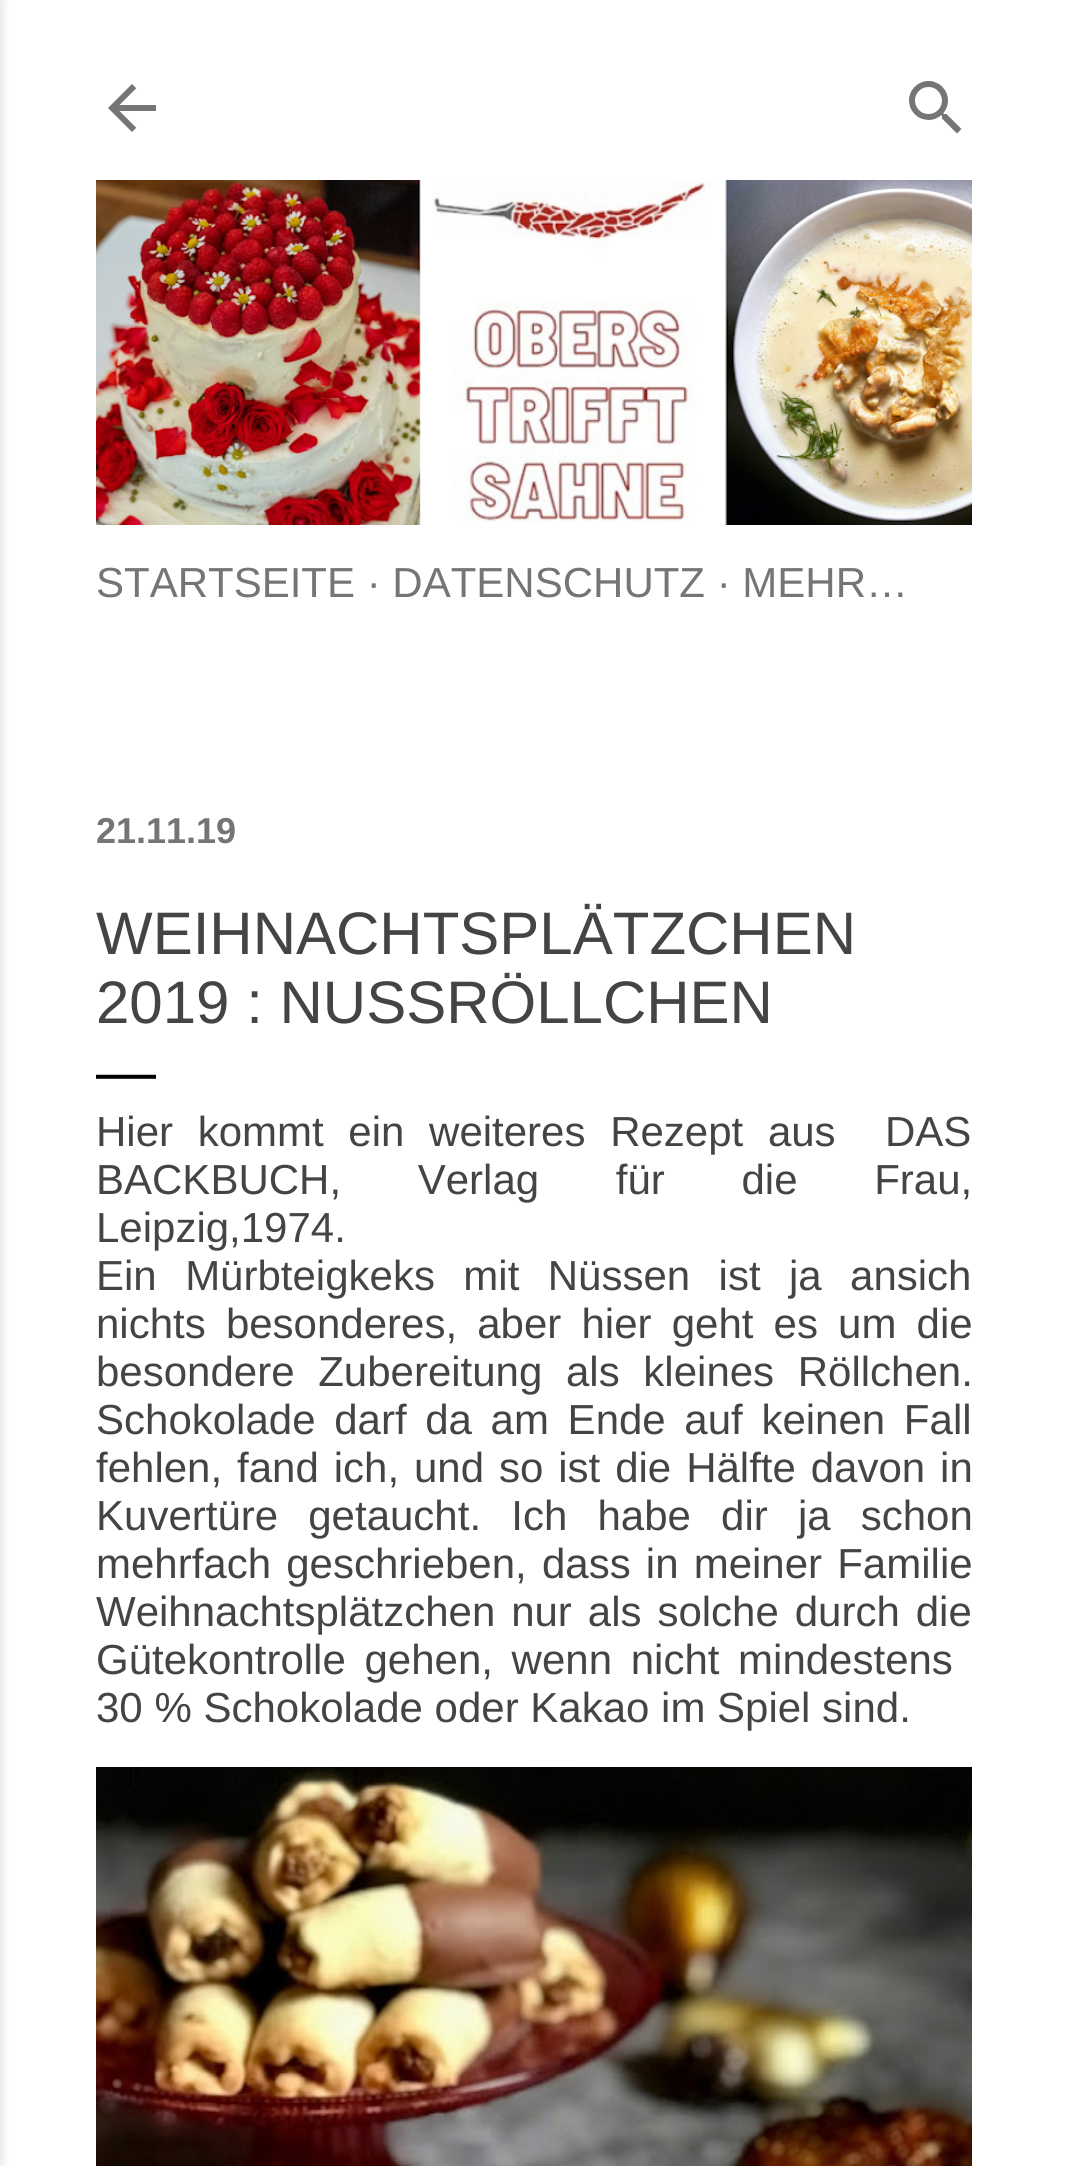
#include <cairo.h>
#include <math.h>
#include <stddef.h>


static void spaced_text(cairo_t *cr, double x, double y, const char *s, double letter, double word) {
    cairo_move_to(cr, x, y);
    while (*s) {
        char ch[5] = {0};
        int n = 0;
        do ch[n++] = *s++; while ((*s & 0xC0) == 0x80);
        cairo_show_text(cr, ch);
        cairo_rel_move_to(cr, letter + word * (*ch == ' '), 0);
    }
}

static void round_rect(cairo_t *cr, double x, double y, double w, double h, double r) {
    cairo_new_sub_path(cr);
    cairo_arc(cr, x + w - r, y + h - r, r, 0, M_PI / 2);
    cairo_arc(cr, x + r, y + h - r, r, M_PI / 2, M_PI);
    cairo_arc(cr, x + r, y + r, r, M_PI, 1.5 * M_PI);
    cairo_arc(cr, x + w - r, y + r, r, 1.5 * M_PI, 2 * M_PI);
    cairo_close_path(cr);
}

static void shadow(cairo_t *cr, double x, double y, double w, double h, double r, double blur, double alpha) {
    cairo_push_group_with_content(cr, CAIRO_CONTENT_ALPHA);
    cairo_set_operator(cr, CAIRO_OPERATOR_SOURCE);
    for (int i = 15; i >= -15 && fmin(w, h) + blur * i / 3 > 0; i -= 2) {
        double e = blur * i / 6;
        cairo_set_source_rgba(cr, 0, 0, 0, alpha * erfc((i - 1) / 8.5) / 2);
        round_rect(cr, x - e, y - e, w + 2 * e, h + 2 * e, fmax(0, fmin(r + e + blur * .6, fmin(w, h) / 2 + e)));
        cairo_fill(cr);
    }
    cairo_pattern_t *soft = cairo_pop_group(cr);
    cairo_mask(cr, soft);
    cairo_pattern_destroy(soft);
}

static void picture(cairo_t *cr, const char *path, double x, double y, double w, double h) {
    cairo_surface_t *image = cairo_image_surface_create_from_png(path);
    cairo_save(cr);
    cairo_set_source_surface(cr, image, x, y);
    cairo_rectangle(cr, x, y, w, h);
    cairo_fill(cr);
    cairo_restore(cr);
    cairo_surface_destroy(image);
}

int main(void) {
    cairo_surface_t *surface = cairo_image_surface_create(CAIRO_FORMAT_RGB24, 1067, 2166);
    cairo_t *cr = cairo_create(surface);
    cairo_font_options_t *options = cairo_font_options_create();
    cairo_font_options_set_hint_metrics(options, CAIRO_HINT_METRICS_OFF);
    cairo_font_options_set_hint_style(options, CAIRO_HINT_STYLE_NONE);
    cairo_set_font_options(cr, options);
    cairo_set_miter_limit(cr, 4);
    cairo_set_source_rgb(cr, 1, 1, 1);
    cairo_paint(cr);
    cairo_set_source_rgb(cr, 0, 0, 0);
    shadow(cr, -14, 0, 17, 2166, 0, 4.5, 0.1);
    picture(cr, "img1.png", 108, 84, 48, 48);
    picture(cr, "img2.png", 909, 81, 53, 53);
    picture(cr, "img3.png", 96, 180, 876, 345);
    cairo_select_font_face(cr, "Liberation Sans", CAIRO_FONT_SLANT_NORMAL, CAIRO_FONT_WEIGHT_NORMAL);
    cairo_set_font_size(cr, 42);
    cairo_set_source_rgb(cr, 0.459, 0.459, 0.459);
    cairo_move_to(cr, 96, 597);
    cairo_show_text(cr, "STARTSEITE · DATENSCHUTZ · MEHR…");
    cairo_select_font_face(cr, "Liberation Sans", CAIRO_FONT_SLANT_NORMAL, CAIRO_FONT_WEIGHT_BOLD);
    cairo_set_font_size(cr, 36);
    cairo_move_to(cr, 96, 843);
    cairo_show_text(cr, "21.11.19");
    cairo_select_font_face(cr, "Liberation Sans", CAIRO_FONT_SLANT_NORMAL, CAIRO_FONT_WEIGHT_NORMAL);
    cairo_set_font_size(cr, 60);
    cairo_set_source_rgb(cr, 0.267, 0.267, 0.267);
    cairo_move_to(cr, 96, 954);
    cairo_show_text(cr, "WEIHNACHTSPLÄTZCHEN");
    cairo_move_to(cr, 96, 1023);
    cairo_show_text(cr, "2019 : NUSSRÖLLCHEN");
    cairo_set_source_rgb(cr, 0, 0, 0);
    cairo_move_to(cr, 96, 1092);
    cairo_show_text(cr, "—");
    cairo_set_font_size(cr, 42);
    cairo_set_source_rgb(cr, 0.267, 0.267, 0.267);
    spaced_text(cr, 96, 1146, "Hier kommt ein weiteres Rezept aus  DAS", 0, 13);
    spaced_text(cr, 96, 1194, "BACKBUCH, Verlag für die Frau,", 0, 65);
    cairo_move_to(cr, 96, 1242);
    cairo_show_text(cr, "Leipzig,1974.");
    spaced_text(cr, 96, 1290, "Ein Mürbteigkeks mit Nüssen ist ja ansich", 0, 16.75);
    spaced_text(cr, 96, 1338, "nichts besonderes, aber hier geht es um die", 0, 8.5);
    spaced_text(cr, 96, 1386, "besondere Zubereitung als kleines Röllchen.", 0, 12);
    spaced_text(cr, 96, 1434, "Schokolade darf da am Ende auf keinen Fall", 0, 7);
    spaced_text(cr, 96, 1482, "fehlen, fand ich, und so ist die Hälfte davon in", 0, 3.25);
    spaced_text(cr, 96, 1530, "Kuvertüre getaucht. Ich habe dir ja schon", 0, 18.5);
    spaced_text(cr, 96, 1578, "mehrfach geschrieben, dass in meiner Familie", 0, 3.5);
    spaced_text(cr, 96, 1626, "Weihnachtsplätzchen nur als solche durch die", 0, 4.25);
    spaced_text(cr, 96, 1674, "Gütekontrolle gehen, wenn nicht mindestens", 0, 7);
    cairo_move_to(cr, 96, 1722);
    cairo_show_text(cr, "30 % Schokolade oder Kakao im Spiel sind.");
    picture(cr, "img4.png", 96, 1767, 876, 399);
    cairo_surface_write_to_png(surface, "page.png");
    cairo_font_options_destroy(options);
    cairo_destroy(cr);
    cairo_surface_destroy(surface);
    return 0;
}
